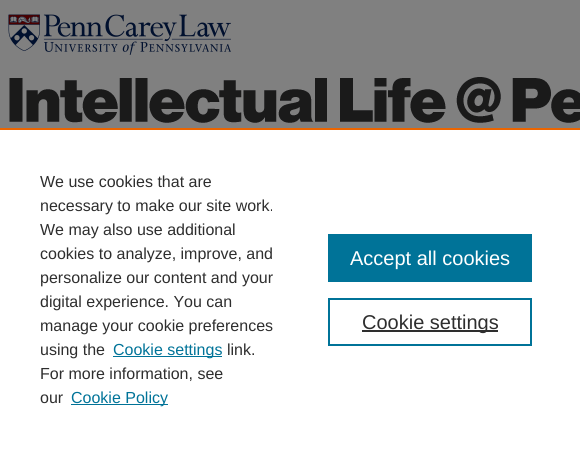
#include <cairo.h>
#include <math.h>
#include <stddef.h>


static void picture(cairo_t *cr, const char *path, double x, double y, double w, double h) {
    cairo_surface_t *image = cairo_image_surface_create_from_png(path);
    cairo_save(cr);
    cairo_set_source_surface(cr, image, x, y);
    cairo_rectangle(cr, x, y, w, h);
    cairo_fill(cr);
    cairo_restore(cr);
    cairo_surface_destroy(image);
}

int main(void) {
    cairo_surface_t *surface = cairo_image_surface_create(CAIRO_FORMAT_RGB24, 580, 450);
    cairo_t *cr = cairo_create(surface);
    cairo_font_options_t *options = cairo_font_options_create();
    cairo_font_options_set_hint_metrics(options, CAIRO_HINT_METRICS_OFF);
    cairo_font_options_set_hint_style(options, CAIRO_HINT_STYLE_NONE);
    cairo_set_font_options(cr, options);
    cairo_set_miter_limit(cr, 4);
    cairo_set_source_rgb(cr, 0.502, 0.502, 0.502);
    cairo_paint(cr);
    picture(cr, "img1.png", 8, 14, 223, 41);
    picture(cr, "img2.png", 9, 77, 571, 46);
    cairo_set_source_rgb(cr, 1, 1, 1);
    cairo_rectangle(cr, 0, 130, 580, 320);
    cairo_fill(cr);
    cairo_set_source_rgb(cr, 0.922, 0.396, 0);
    cairo_rectangle(cr, 0, 128, 580, 2);
    cairo_fill(cr);
    cairo_select_font_face(cr, "Liberation Sans", CAIRO_FONT_SLANT_NORMAL, CAIRO_FONT_WEIGHT_NORMAL);
    cairo_set_font_size(cr, 16);
    cairo_set_source_rgb(cr, 0.18, 0.18, 0.18);
    cairo_move_to(cr, 40, 187);
    cairo_show_text(cr, "We use cookies that are");
    cairo_move_to(cr, 40, 211);
    cairo_show_text(cr, "necessary to make our site work.");
    cairo_move_to(cr, 40, 235);
    cairo_show_text(cr, "We may also use additional");
    cairo_move_to(cr, 40, 259);
    cairo_show_text(cr, "cookies to analyze, improve, and");
    cairo_move_to(cr, 40, 283);
    cairo_show_text(cr, "personalize our content and your");
    cairo_move_to(cr, 40, 307);
    cairo_show_text(cr, "digital experience. You can");
    cairo_move_to(cr, 40, 331);
    cairo_show_text(cr, "manage your cookie preferences");
    cairo_move_to(cr, 40, 355);
    cairo_show_text(cr, "using the");
    cairo_set_source_rgb(cr, 0, 0.451, 0.596);
    cairo_rectangle(cr, 113, 356, 109, 1);
    cairo_fill(cr);
    cairo_move_to(cr, 113, 355);
    cairo_show_text(cr, "Cookie settings");
    cairo_set_source_rgb(cr, 0.18, 0.18, 0.18);
    cairo_move_to(cr, 227, 355);
    cairo_show_text(cr, "link.");
    cairo_move_to(cr, 40, 379);
    cairo_show_text(cr, "For more information, see");
    cairo_move_to(cr, 40, 403);
    cairo_show_text(cr, "our");
    cairo_set_source_rgb(cr, 0, 0.451, 0.596);
    cairo_rectangle(cr, 71, 404, 97, 1);
    cairo_fill(cr);
    cairo_move_to(cr, 71, 403);
    cairo_show_text(cr, "Cookie Policy");
    cairo_rectangle(cr, 328, 234, 204, 48);
    cairo_fill(cr);
    cairo_set_font_size(cr, 20);
    cairo_set_source_rgb(cr, 1, 1, 1);
    cairo_move_to(cr, 350, 265);
    cairo_show_text(cr, "Accept all cookies");
    cairo_rectangle(cr, 329, 299, 202, 46);
    cairo_set_source_rgb(cr, 0, 0.451, 0.596);
    cairo_stroke(cr);
    cairo_set_source_rgb(cr, 0.18, 0.18, 0.18);
    cairo_rectangle(cr, 362, 330, 136, 2);
    cairo_fill(cr);
    cairo_move_to(cr, 362, 329);
    cairo_show_text(cr, "Cookie settings");
    cairo_surface_write_to_png(surface, "page.png");
    cairo_font_options_destroy(options);
    cairo_destroy(cr);
    cairo_surface_destroy(surface);
    return 0;
}
